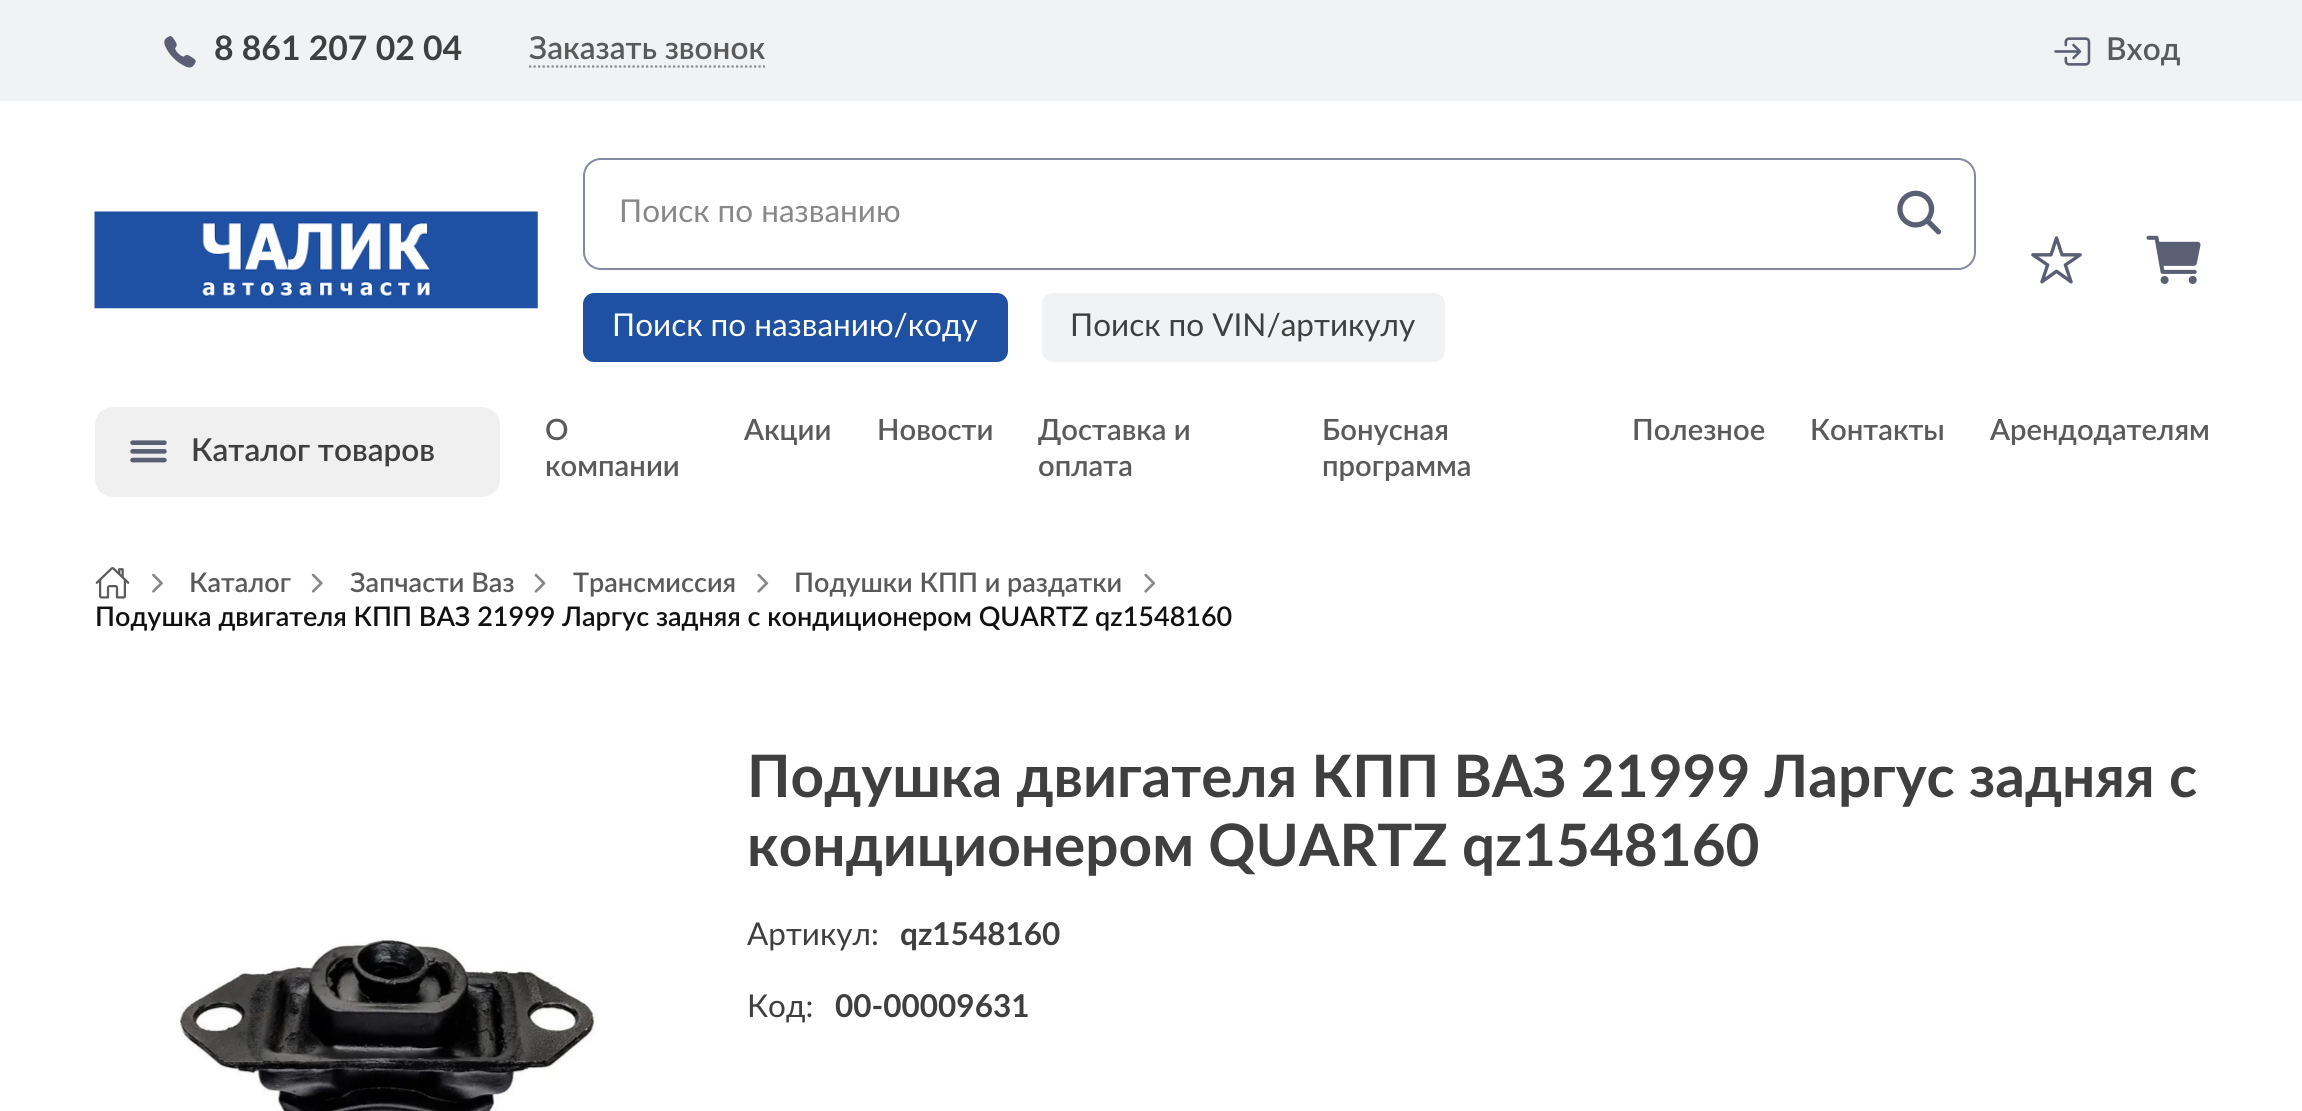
#include <cairo.h>
#include <math.h>
#include <stddef.h>


static void round_rect(cairo_t *cr, double x, double y, double w, double h, double r) {
    cairo_new_sub_path(cr);
    cairo_arc(cr, x + w - r, y + h - r, r, 0, M_PI / 2);
    cairo_arc(cr, x + r, y + h - r, r, M_PI / 2, M_PI);
    cairo_arc(cr, x + r, y + r, r, M_PI, 1.5 * M_PI);
    cairo_arc(cr, x + w - r, y + r, r, 1.5 * M_PI, 2 * M_PI);
    cairo_close_path(cr);
}

static void picture(cairo_t *cr, const char *path, double x, double y, double w, double h) {
    cairo_surface_t *image = cairo_image_surface_create_from_png(path);
    cairo_save(cr);
    cairo_set_source_surface(cr, image, x, y);
    cairo_rectangle(cr, x, y, w, h);
    cairo_fill(cr);
    cairo_restore(cr);
    cairo_surface_destroy(image);
}

int main(void) {
    cairo_surface_t *surface = cairo_image_surface_create(CAIRO_FORMAT_RGB24, 2302, 1111);
    cairo_t *cr = cairo_create(surface);
    cairo_font_options_t *options = cairo_font_options_create();
    cairo_font_options_set_hint_metrics(options, CAIRO_HINT_METRICS_OFF);
    cairo_font_options_set_hint_style(options, CAIRO_HINT_STYLE_NONE);
    cairo_set_font_options(cr, options);
    cairo_set_miter_limit(cr, 4);
    cairo_set_source_rgb(cr, 1, 1, 1);
    cairo_paint(cr);
    cairo_set_source_rgb(cr, 0.945, 0.949, 0.953);
    cairo_rectangle(cr, 0, 0, 2302, 101);
    cairo_fill(cr);
    picture(cr, "img1.png", 164, 36, 32, 32);
    cairo_select_font_face(cr, "Lato", CAIRO_FONT_SLANT_NORMAL, CAIRO_FONT_WEIGHT_BOLD);
    cairo_set_font_size(cr, 33.75);
    cairo_set_source_rgb(cr, 0.247, 0.247, 0.247);
    cairo_move_to(cr, 214, 60);
    cairo_show_text(cr, "8 861 207 02 04");
    cairo_select_font_face(cr, "Lato SemiBold", CAIRO_FONT_SLANT_NORMAL, CAIRO_FONT_WEIGHT_NORMAL);
    cairo_set_font_size(cr, 31.5);
    cairo_set_source_rgb(cr, 0.353, 0.353, 0.353);
    cairo_move_to(cr, 529, 59);
    cairo_show_text(cr, "Заказать звонок");
    cairo_new_path(cr);
    cairo_move_to(cr, 529, 66.5);
    cairo_line_to(cr, 765, 66.5);
    cairo_set_source_rgb(cr, 0.533, 0.533, 0.533);
    cairo_set_line_width(cr, 2.2);
    cairo_set_dash(cr, (double[]){2.25, 2.25}, 2, 0);
    cairo_stroke(cr);
    picture(cr, "img2.png", 2054, 37, 37, 29);
    cairo_set_source_rgb(cr, 0.353, 0.353, 0.353);
    cairo_move_to(cr, 2106, 60);
    cairo_show_text(cr, "Вход");
    picture(cr, "img3.png", 94, 211, 444, 98);
    round_rect(cr, 584, 159, 1391, 110, 17);
    cairo_set_source_rgb(cr, 0.522, 0.541, 0.635);
    cairo_set_line_width(cr, 2);
    cairo_set_dash(cr, NULL, 0, 0);
    cairo_stroke(cr);
    cairo_select_font_face(cr, "Lato", CAIRO_FONT_SLANT_NORMAL, CAIRO_FONT_WEIGHT_NORMAL);
    cairo_set_source_rgb(cr, 0.533, 0.533, 0.533);
    cairo_move_to(cr, 619, 222);
    cairo_show_text(cr, "Поиск по названию");
    picture(cr, "img4.png", 1897, 190, 45, 45);
    cairo_set_source_rgb(cr, 0.118, 0.314, 0.639);
    round_rect(cr, 583, 293, 425, 69, 11);
    cairo_fill(cr);
    cairo_set_source_rgb(cr, 1, 1, 1);
    cairo_move_to(cr, 612, 336);
    cairo_show_text(cr, "Поиск по названию/коду");
    cairo_set_source_rgb(cr, 0.945, 0.949, 0.953);
    round_rect(cr, 1042, 293, 403, 69, 11);
    cairo_fill(cr);
    cairo_set_source_rgb(cr, 0.247, 0.247, 0.247);
    cairo_move_to(cr, 1070, 336);
    cairo_show_text(cr, "Поиск по VIN/артикулу");
    picture(cr, "img5.png", 2031, 236, 51, 48);
    picture(cr, "img6.png", 2146, 235, 55, 49);
    cairo_set_source_rgb(cr, 0.941, 0.941, 0.941);
    round_rect(cr, 95, 407, 405, 90, 18);
    cairo_fill(cr);
    picture(cr, "img7.png", 130, 440, 37, 23);
    cairo_select_font_face(cr, "Lato SemiBold", CAIRO_FONT_SLANT_NORMAL, CAIRO_FONT_WEIGHT_NORMAL);
    cairo_set_source_rgb(cr, 0.247, 0.247, 0.247);
    cairo_move_to(cr, 191, 461);
    cairo_show_text(cr, "Каталог товаров");
    cairo_set_font_size(cr, 29.25);
    cairo_set_source_rgb(cr, 0.353, 0.353, 0.353);
    cairo_move_to(cr, 545, 440);
    cairo_show_text(cr, "О");
    cairo_move_to(cr, 545, 476);
    cairo_show_text(cr, "компании");
    cairo_move_to(cr, 744, 440);
    cairo_show_text(cr, "Акции");
    cairo_move_to(cr, 877, 440);
    cairo_show_text(cr, "Новости");
    cairo_move_to(cr, 1038, 440);
    cairo_show_text(cr, "Доставка и");
    cairo_move_to(cr, 1038, 476);
    cairo_show_text(cr, "оплата");
    cairo_move_to(cr, 1322, 440);
    cairo_show_text(cr, "Бонусная");
    cairo_move_to(cr, 1322, 476);
    cairo_show_text(cr, "программа");
    cairo_move_to(cr, 1632, 440);
    cairo_show_text(cr, "Полезное");
    cairo_move_to(cr, 1810, 440);
    cairo_show_text(cr, "Контакты");
    cairo_move_to(cr, 1990, 440);
    cairo_show_text(cr, "Арендодателям");
    picture(cr, "img8.png", 95, 567, 35, 32);
    picture(cr, "img9.png", 152, 573, 11, 20);
    cairo_set_font_size(cr, 27);
    cairo_move_to(cr, 189, 592);
    cairo_show_text(cr, "Каталог");
    picture(cr, "img10.png", 311, 573, 12, 20);
    cairo_move_to(cr, 350, 592);
    cairo_show_text(cr, "Запчасти Ваз");
    picture(cr, "img11.png", 534, 573, 12, 20);
    cairo_move_to(cr, 573, 592);
    cairo_show_text(cr, "Трансмиссия");
    picture(cr, "img12.png", 757, 573, 12, 20);
    cairo_move_to(cr, 794, 592);
    cairo_show_text(cr, "Подушки КПП и раздатки");
    picture(cr, "img12.png", 1144, 573, 12, 20);
    cairo_set_source_rgb(cr, 0.067, 0.067, 0.067);
    cairo_move_to(cr, 95, 626);
    cairo_show_text(cr, "Подушка двигателя КПП ВАЗ 21999 Ларгус задняя с кондиционером QUARTZ qz1548160");
    picture(cr, "img13.png", 176, 938, 420, 173);
    cairo_select_font_face(cr, "Lato", CAIRO_FONT_SLANT_NORMAL, CAIRO_FONT_WEIGHT_BOLD);
    cairo_set_font_size(cr, 58.5);
    cairo_set_source_rgb(cr, 0.247, 0.247, 0.247);
    cairo_move_to(cr, 747, 797);
    cairo_show_text(cr, "Подушка двигателя КПП ВАЗ 21999 Ларгус задняя с");
    cairo_move_to(cr, 747, 866);
    cairo_show_text(cr, "кондиционером QUARTZ qz1548160");
    cairo_select_font_face(cr, "Lato", CAIRO_FONT_SLANT_NORMAL, CAIRO_FONT_WEIGHT_NORMAL);
    cairo_set_font_size(cr, 31.5);
    cairo_move_to(cr, 747, 945);
    cairo_show_text(cr, "Артикул:");
    cairo_select_font_face(cr, "Lato", CAIRO_FONT_SLANT_NORMAL, CAIRO_FONT_WEIGHT_BOLD);
    cairo_move_to(cr, 900, 945);
    cairo_show_text(cr, "qz1548160");
    cairo_select_font_face(cr, "Lato", CAIRO_FONT_SLANT_NORMAL, CAIRO_FONT_WEIGHT_NORMAL);
    cairo_move_to(cr, 747, 1017);
    cairo_show_text(cr, "Код:");
    cairo_select_font_face(cr, "Lato", CAIRO_FONT_SLANT_NORMAL, CAIRO_FONT_WEIGHT_BOLD);
    cairo_move_to(cr, 835, 1017);
    cairo_show_text(cr, "00-00009631");
    cairo_surface_write_to_png(surface, "page.png");
    cairo_font_options_destroy(options);
    cairo_destroy(cr);
    cairo_surface_destroy(surface);
    return 0;
}
